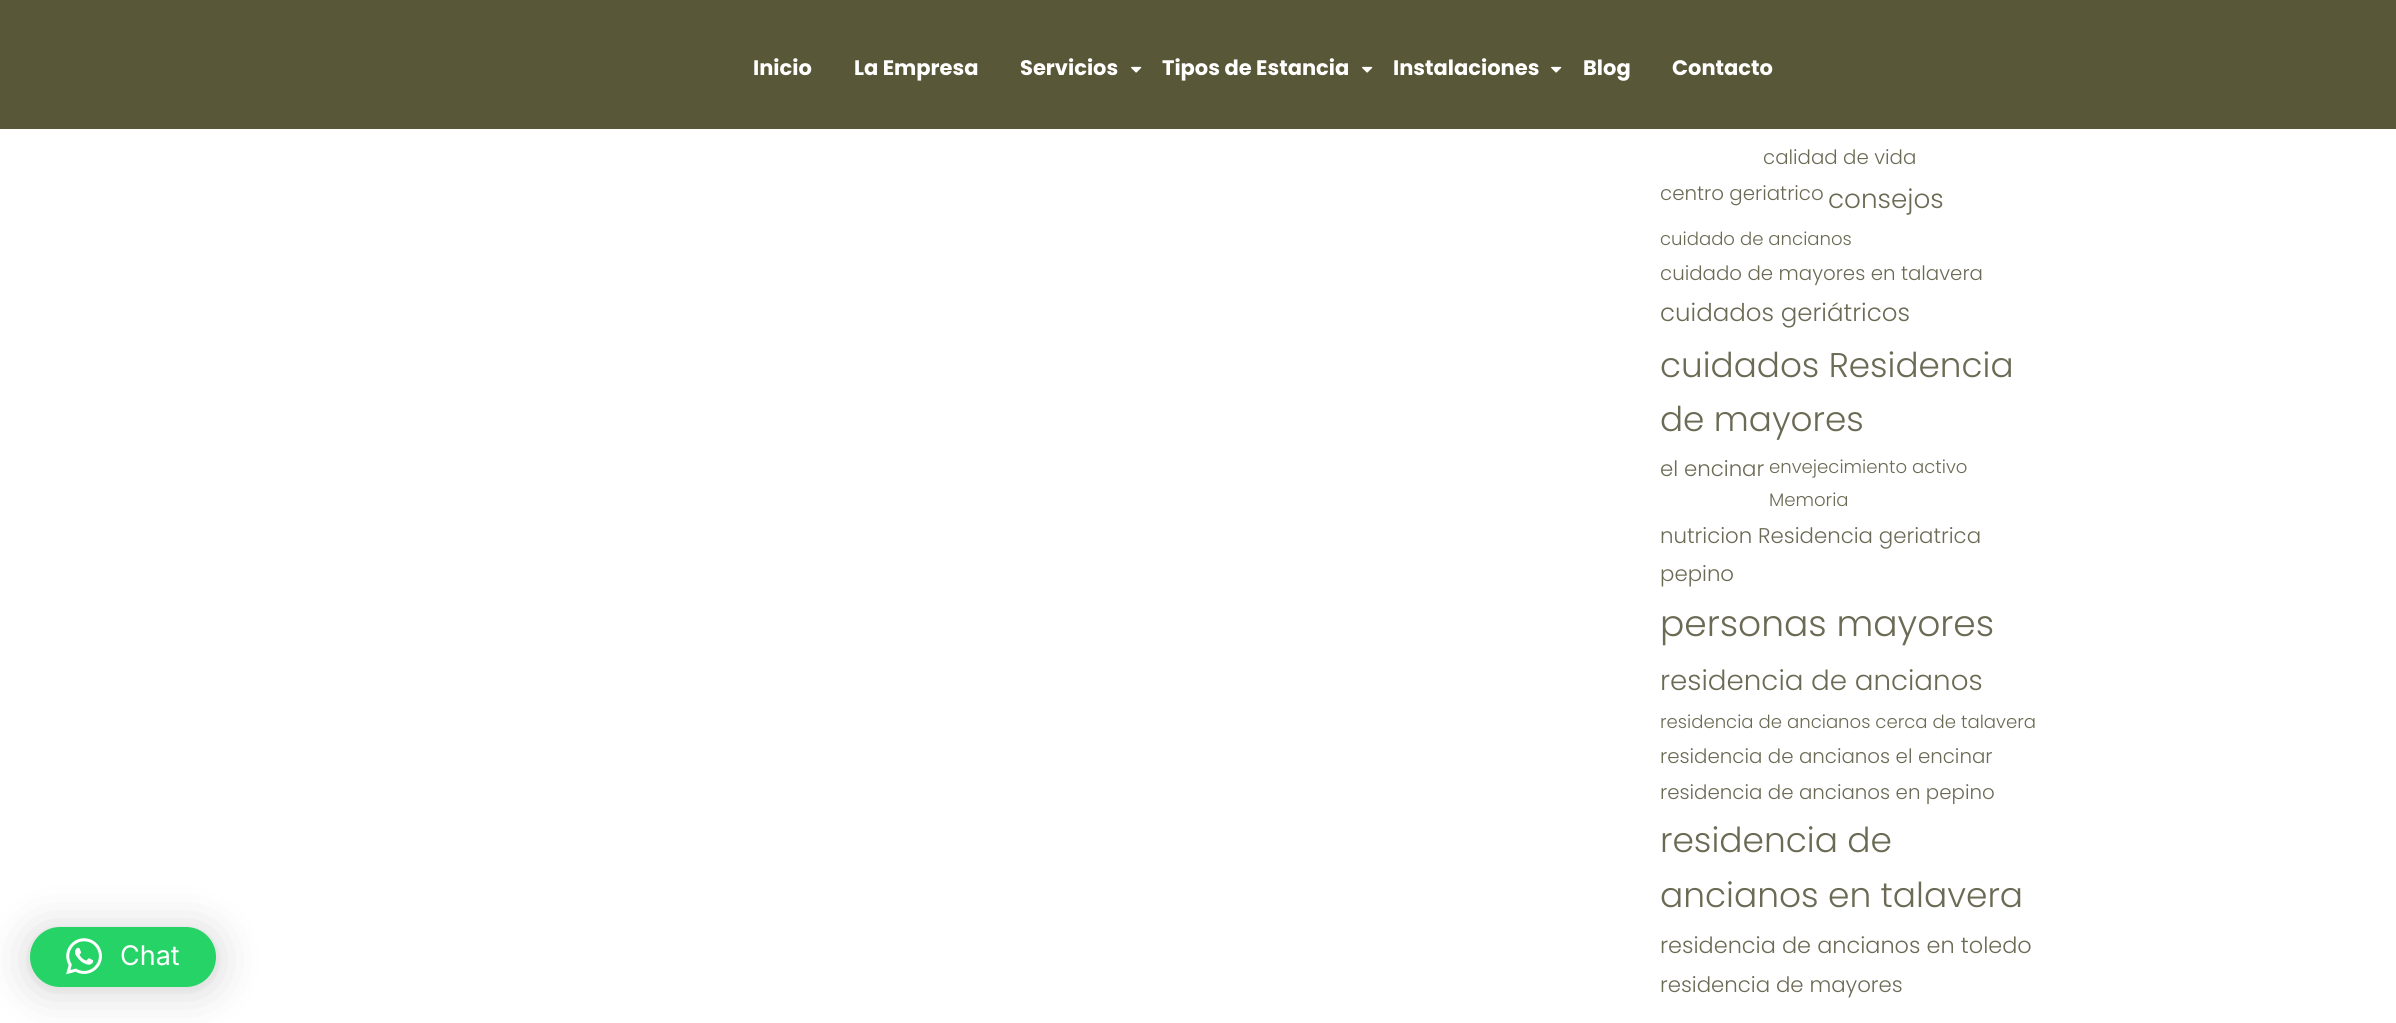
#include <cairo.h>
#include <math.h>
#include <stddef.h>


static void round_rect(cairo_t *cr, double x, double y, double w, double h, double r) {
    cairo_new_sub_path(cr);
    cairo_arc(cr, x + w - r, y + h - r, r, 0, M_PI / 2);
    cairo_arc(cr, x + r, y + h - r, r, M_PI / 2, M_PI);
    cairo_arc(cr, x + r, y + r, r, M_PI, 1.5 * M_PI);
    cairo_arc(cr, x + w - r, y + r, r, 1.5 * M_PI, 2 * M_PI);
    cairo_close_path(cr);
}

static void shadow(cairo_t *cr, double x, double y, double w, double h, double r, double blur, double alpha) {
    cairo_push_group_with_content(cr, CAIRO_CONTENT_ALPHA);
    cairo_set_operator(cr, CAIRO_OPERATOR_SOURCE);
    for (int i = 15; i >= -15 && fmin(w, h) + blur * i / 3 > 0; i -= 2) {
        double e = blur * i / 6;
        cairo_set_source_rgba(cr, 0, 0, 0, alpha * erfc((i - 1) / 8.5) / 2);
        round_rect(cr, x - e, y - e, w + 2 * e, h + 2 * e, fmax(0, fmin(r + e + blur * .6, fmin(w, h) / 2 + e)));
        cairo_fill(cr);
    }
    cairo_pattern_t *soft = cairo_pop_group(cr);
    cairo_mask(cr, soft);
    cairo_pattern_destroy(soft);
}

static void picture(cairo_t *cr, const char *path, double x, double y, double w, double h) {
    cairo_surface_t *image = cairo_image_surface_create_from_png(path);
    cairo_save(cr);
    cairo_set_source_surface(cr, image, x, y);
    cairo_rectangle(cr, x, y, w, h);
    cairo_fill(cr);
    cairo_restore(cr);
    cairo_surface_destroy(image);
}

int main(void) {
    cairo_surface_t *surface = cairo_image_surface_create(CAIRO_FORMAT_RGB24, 2396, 1023);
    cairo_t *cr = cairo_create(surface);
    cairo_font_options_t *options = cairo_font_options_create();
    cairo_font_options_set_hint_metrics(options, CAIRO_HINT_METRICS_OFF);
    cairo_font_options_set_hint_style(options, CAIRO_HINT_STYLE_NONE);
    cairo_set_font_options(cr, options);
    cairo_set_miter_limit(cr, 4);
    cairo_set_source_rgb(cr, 1, 1, 1);
    cairo_paint(cr);
    cairo_set_source_rgb(cr, 0.345, 0.341, 0.22);
    cairo_rectangle(cr, 0, 0, 2396, 129);
    cairo_fill(cr);
    cairo_select_font_face(cr, "Poppins", CAIRO_FONT_SLANT_NORMAL, CAIRO_FONT_WEIGHT_BOLD);
    cairo_set_font_size(cr, 21);
    cairo_set_source_rgb(cr, 1, 1, 1);
    cairo_move_to(cr, 753, 75);
    cairo_show_text(cr, "Inicio");
    cairo_move_to(cr, 854, 75);
    cairo_show_text(cr, "La Empresa");
    cairo_move_to(cr, 1020, 75);
    cairo_show_text(cr, "Servicios");
    picture(cr, "img1.png", 1131, 66, 11, 7);
    cairo_move_to(cr, 1162, 75);
    cairo_show_text(cr, "Tipos de Estancia");
    picture(cr, "img1.png", 1362, 66, 11, 7);
    cairo_move_to(cr, 1393, 75);
    cairo_show_text(cr, "Instalaciones");
    picture(cr, "img1.png", 1551, 66, 11, 7);
    cairo_move_to(cr, 1583, 75);
    cairo_show_text(cr, "Blog");
    cairo_move_to(cr, 1672, 75);
    cairo_show_text(cr, "Contacto");
    cairo_set_source_rgb(cr, 0, 0, 0);
    shadow(cr, 30, 930, 186, 60, 30, 24, 0.16);
    shadow(cr, 30, 929, 186, 60, 30, 4.5, 0.06);
    cairo_set_source_rgb(cr, 0.145, 0.827, 0.4);
    round_rect(cr, 30, 927, 186, 60, 30);
    cairo_fill(cr);
    picture(cr, "img2.png", 66, 938, 36, 37);
    cairo_select_font_face(cr, "Inter", CAIRO_FONT_SLANT_NORMAL, CAIRO_FONT_WEIGHT_NORMAL);
    cairo_set_font_size(cr, 27);
    cairo_set_source_rgb(cr, 1, 1, 1);
    cairo_move_to(cr, 120, 965);
    cairo_show_text(cr, "Chat");
    cairo_select_font_face(cr, "Poppins Light", CAIRO_FONT_SLANT_NORMAL, CAIRO_FONT_WEIGHT_NORMAL);
    cairo_set_font_size(cr, 19.8);
    cairo_set_source_rgb(cr, 0.42, 0.416, 0.329);
    cairo_move_to(cr, 1763, 164);
    cairo_show_text(cr, "calidad de vida");
    cairo_move_to(cr, 1660, 200);
    cairo_show_text(cr, "centro geriatrico");
    cairo_set_font_size(cr, 26.25);
    cairo_move_to(cr, 1828, 208);
    cairo_show_text(cr, "consejos");
    cairo_set_font_size(cr, 18.1);
    cairo_move_to(cr, 1660, 245);
    cairo_show_text(cr, "cuidado de ancianos");
    cairo_set_font_size(cr, 19.8);
    cairo_move_to(cr, 1660, 280);
    cairo_show_text(cr, "cuidado de mayores en talavera");
    cairo_set_font_size(cr, 24.5);
    cairo_move_to(cr, 1660, 321);
    cairo_show_text(cr, "cuidados geriátricos");
    cairo_set_font_size(cr, 34.25);
    cairo_move_to(cr, 1660, 377);
    cairo_show_text(cr, "cuidados Residencia");
    cairo_move_to(cr, 1660, 431);
    cairo_show_text(cr, "de mayores");
    cairo_set_font_size(cr, 21.3);
    cairo_move_to(cr, 1660, 476);
    cairo_show_text(cr, "el encinar");
    cairo_set_font_size(cr, 18.1);
    cairo_move_to(cr, 1769, 473);
    cairo_show_text(cr, "envejecimiento activo");
    cairo_move_to(cr, 1769, 506);
    cairo_show_text(cr, "Memoria");
    cairo_set_font_size(cr, 21.3);
    cairo_move_to(cr, 1660, 543);
    cairo_show_text(cr, "nutricion Residencia geriatrica");
    cairo_move_to(cr, 1660, 581);
    cairo_show_text(cr, "pepino");
    cairo_set_font_size(cr, 36);
    cairo_move_to(cr, 1660, 636);
    cairo_show_text(cr, "personas mayores");
    cairo_set_font_size(cr, 27.75);
    cairo_move_to(cr, 1660, 690);
    cairo_show_text(cr, "residencia de ancianos");
    cairo_set_font_size(cr, 18.1);
    cairo_move_to(cr, 1660, 728);
    cairo_show_text(cr, "residencia de ancianos cerca de talavera");
    cairo_set_font_size(cr, 19.8);
    cairo_move_to(cr, 1660, 763);
    cairo_show_text(cr, "residencia de ancianos el encinar");
    cairo_move_to(cr, 1660, 799);
    cairo_show_text(cr, "residencia de ancianos en pepino");
    cairo_set_font_size(cr, 34.4);
    cairo_move_to(cr, 1660, 852);
    cairo_show_text(cr, "residencia de");
    cairo_move_to(cr, 1660, 907);
    cairo_show_text(cr, "ancianos en talavera");
    cairo_set_font_size(cr, 22.4);
    cairo_move_to(cr, 1660, 953);
    cairo_show_text(cr, "residencia de ancianos en toledo");
    cairo_set_font_size(cr, 21.3);
    cairo_move_to(cr, 1660, 992);
    cairo_show_text(cr, "residencia de mayores");
    cairo_surface_write_to_png(surface, "page.png");
    cairo_font_options_destroy(options);
    cairo_destroy(cr);
    cairo_surface_destroy(surface);
    return 0;
}
